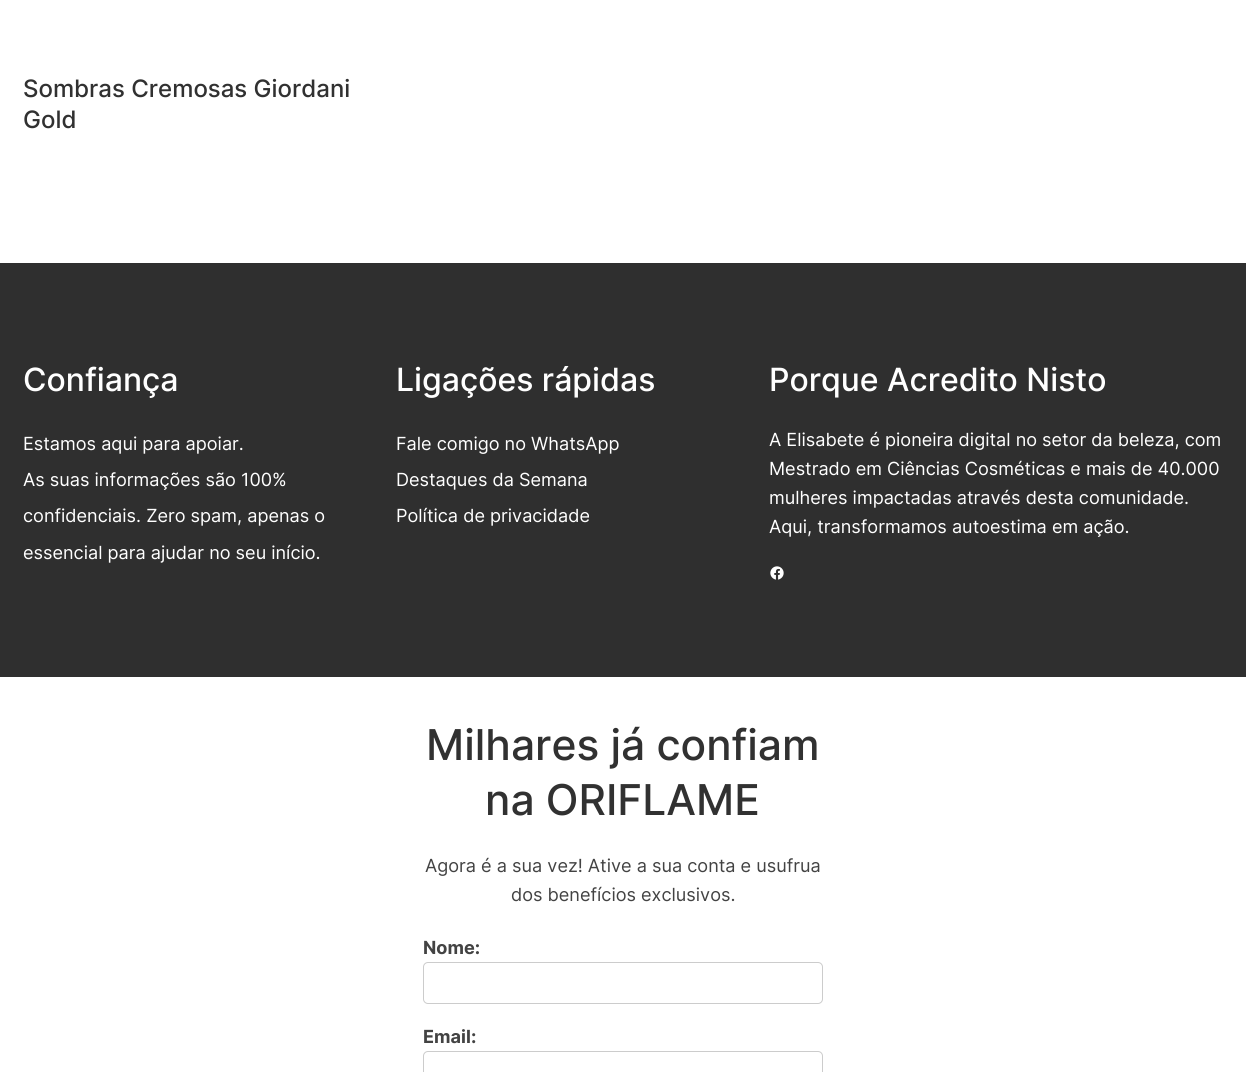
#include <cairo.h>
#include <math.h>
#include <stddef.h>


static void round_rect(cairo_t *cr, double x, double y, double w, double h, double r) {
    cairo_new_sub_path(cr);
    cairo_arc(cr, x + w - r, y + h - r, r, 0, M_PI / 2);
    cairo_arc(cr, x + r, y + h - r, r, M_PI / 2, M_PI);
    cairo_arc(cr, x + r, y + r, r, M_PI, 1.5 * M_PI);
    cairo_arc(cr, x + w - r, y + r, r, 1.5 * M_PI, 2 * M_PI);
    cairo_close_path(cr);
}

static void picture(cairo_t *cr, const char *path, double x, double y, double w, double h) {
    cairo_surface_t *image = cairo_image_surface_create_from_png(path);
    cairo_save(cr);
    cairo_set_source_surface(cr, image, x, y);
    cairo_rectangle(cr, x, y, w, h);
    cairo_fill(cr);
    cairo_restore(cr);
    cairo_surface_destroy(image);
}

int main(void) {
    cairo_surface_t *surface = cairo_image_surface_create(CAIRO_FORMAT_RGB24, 1246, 1072);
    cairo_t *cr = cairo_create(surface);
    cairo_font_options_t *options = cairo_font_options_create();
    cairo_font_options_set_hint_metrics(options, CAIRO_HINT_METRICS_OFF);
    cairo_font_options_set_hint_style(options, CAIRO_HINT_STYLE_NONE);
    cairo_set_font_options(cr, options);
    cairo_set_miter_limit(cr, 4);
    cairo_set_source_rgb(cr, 1, 1, 1);
    cairo_paint(cr);
    cairo_select_font_face(cr, "Inter Medium", CAIRO_FONT_SLANT_NORMAL, CAIRO_FONT_WEIGHT_NORMAL);
    cairo_set_font_size(cr, 24);
    cairo_set_source_rgb(cr, 0.192, 0.192, 0.192);
    cairo_move_to(cr, 23, 97);
    cairo_show_text(cr, "Sombras Cremosas Giordani");
    cairo_move_to(cr, 23, 128);
    cairo_show_text(cr, "Gold");
    cairo_set_source_rgb(cr, 0.184, 0.184, 0.184);
    cairo_rectangle(cr, 0, 263, 1246, 414);
    cairo_fill(cr);
    cairo_set_font_size(cr, 32);
    cairo_set_source_rgb(cr, 1, 1, 1);
    cairo_move_to(cr, 23, 391);
    cairo_show_text(cr, "Confiança");
    cairo_select_font_face(cr, "Inter", CAIRO_FONT_SLANT_NORMAL, CAIRO_FONT_WEIGHT_NORMAL);
    cairo_set_font_size(cr, 18.1);
    cairo_move_to(cr, 23, 450);
    cairo_show_text(cr, "Estamos aqui para apoiar.");
    cairo_move_to(cr, 23, 486);
    cairo_show_text(cr, "As suas informações são 100%");
    cairo_move_to(cr, 23, 522);
    cairo_show_text(cr, "confidenciais. Zero spam, apenas o");
    cairo_move_to(cr, 23, 559);
    cairo_show_text(cr, "essencial para ajudar no seu início.");
    cairo_select_font_face(cr, "Inter Medium", CAIRO_FONT_SLANT_NORMAL, CAIRO_FONT_WEIGHT_NORMAL);
    cairo_set_font_size(cr, 32);
    cairo_move_to(cr, 396, 391);
    cairo_show_text(cr, "Ligações rápidas");
    cairo_select_font_face(cr, "Inter", CAIRO_FONT_SLANT_NORMAL, CAIRO_FONT_WEIGHT_NORMAL);
    cairo_set_font_size(cr, 18.1);
    cairo_move_to(cr, 396, 450);
    cairo_show_text(cr, "Fale comigo no WhatsApp");
    cairo_move_to(cr, 396, 486);
    cairo_show_text(cr, "Destaques da Semana");
    cairo_move_to(cr, 396, 522);
    cairo_show_text(cr, "Política de privacidade");
    cairo_select_font_face(cr, "Inter Medium", CAIRO_FONT_SLANT_NORMAL, CAIRO_FONT_WEIGHT_NORMAL);
    cairo_set_font_size(cr, 32);
    cairo_move_to(cr, 769, 391);
    cairo_show_text(cr, "Porque Acredito Nisto");
    cairo_select_font_face(cr, "Inter", CAIRO_FONT_SLANT_NORMAL, CAIRO_FONT_WEIGHT_NORMAL);
    cairo_set_font_size(cr, 18.1);
    cairo_move_to(cr, 769, 446);
    cairo_show_text(cr, "A Elisabete é pioneira digital no setor da beleza, com");
    cairo_move_to(cr, 769, 475);
    cairo_show_text(cr, "Mestrado em Ciências Cosméticas e mais de 40.000");
    cairo_move_to(cr, 769, 504);
    cairo_show_text(cr, "mulheres impactadas através desta comunidade.");
    cairo_move_to(cr, 769, 533);
    cairo_show_text(cr, "Aqui, transformamos autoestima em ação.");
    picture(cr, "img1.png", 770, 566, 14, 14);
    cairo_select_font_face(cr, "Inter Medium", CAIRO_FONT_SLANT_NORMAL, CAIRO_FONT_WEIGHT_NORMAL);
    cairo_set_font_size(cr, 42.5);
    cairo_set_source_rgb(cr, 0.192, 0.192, 0.192);
    cairo_move_to(cr, 426, 760);
    cairo_show_text(cr, "Milhares já confiam");
    cairo_move_to(cr, 485, 815);
    cairo_show_text(cr, "na ORIFLAME");
    cairo_select_font_face(cr, "Inter", CAIRO_FONT_SLANT_NORMAL, CAIRO_FONT_WEIGHT_NORMAL);
    cairo_set_font_size(cr, 18.1);
    cairo_set_source_rgb(cr, 0.263, 0.263, 0.263);
    cairo_move_to(cr, 425, 872);
    cairo_show_text(cr, "Agora é a sua vez! Ative a sua conta e usufrua");
    cairo_move_to(cr, 511, 901);
    cairo_show_text(cr, "dos benefícios exclusivos.");
    cairo_select_font_face(cr, "Inter", CAIRO_FONT_SLANT_NORMAL, CAIRO_FONT_WEIGHT_BOLD);
    cairo_move_to(cr, 423, 954);
    cairo_show_text(cr, "Nome:");
    round_rect(cr, 423.5, 962.5, 399, 41, 4.5);
    cairo_set_source_rgb(cr, 0.8, 0.8, 0.8);
    cairo_set_line_width(cr, 1);
    cairo_stroke(cr);
    cairo_set_source_rgb(cr, 0.263, 0.263, 0.263);
    cairo_move_to(cr, 423, 1043);
    cairo_show_text(cr, "Email:");
    round_rect(cr, 423.5, 1051.5, 399, 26, 4.5);
    cairo_set_source_rgb(cr, 0.8, 0.8, 0.8);
    cairo_stroke(cr);
    cairo_surface_write_to_png(surface, "page.png");
    cairo_font_options_destroy(options);
    cairo_destroy(cr);
    cairo_surface_destroy(surface);
    return 0;
}
